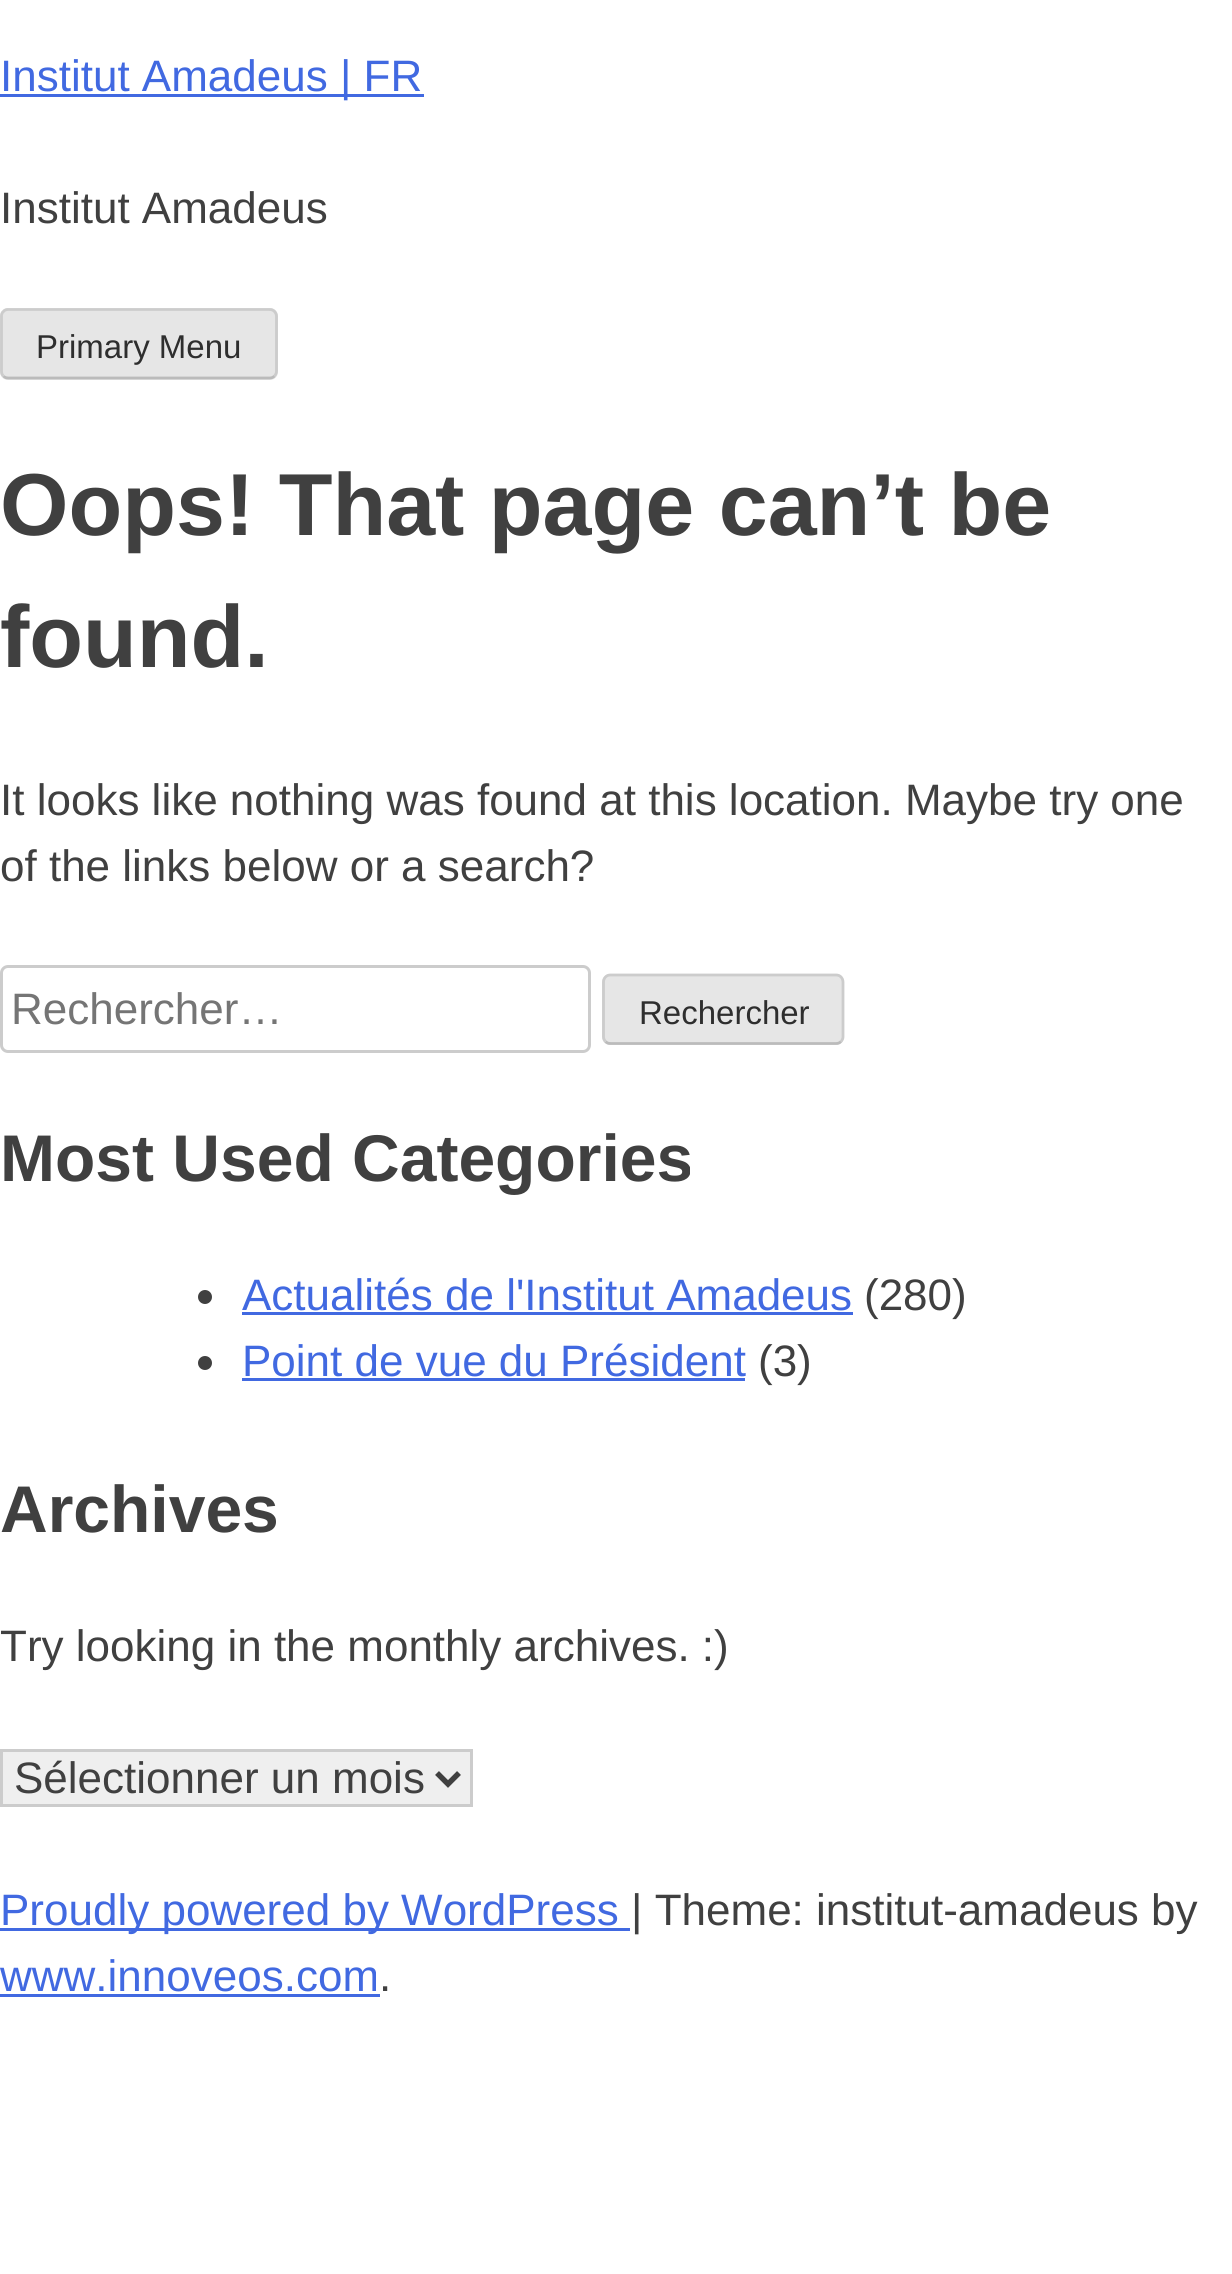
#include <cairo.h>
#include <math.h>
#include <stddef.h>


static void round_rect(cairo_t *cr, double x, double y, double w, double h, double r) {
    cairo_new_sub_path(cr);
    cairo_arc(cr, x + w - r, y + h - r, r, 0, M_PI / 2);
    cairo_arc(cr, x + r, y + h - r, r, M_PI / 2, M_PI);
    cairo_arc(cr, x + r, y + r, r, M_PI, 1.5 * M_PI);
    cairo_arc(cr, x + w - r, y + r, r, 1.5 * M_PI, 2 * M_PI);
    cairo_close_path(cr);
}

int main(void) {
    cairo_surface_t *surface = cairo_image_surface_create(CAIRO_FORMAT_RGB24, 1232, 2274);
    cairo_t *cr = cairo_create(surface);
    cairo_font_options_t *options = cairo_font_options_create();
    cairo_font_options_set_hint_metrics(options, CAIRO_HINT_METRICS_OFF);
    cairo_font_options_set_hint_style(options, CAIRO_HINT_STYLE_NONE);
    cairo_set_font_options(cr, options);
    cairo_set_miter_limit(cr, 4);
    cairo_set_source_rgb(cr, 1, 1, 1);
    cairo_paint(cr);
    cairo_set_source_rgb(cr, 0.255, 0.412, 0.882);
    cairo_rectangle(cr, 0, 94, 424, 3);
    cairo_fill(cr);
    cairo_select_font_face(cr, "Liberation Sans", CAIRO_FONT_SLANT_NORMAL, CAIRO_FONT_WEIGHT_NORMAL);
    cairo_set_font_size(cr, 44);
    cairo_move_to(cr, 0, 91);
    cairo_show_text(cr, "Institut Amadeus | FR");
    cairo_set_source_rgb(cr, 0.251, 0.251, 0.251);
    cairo_move_to(cr, 0, 223);
    cairo_show_text(cr, "Institut Amadeus");
    cairo_set_source_rgb(cr, 0.902, 0.902, 0.902);
    round_rect(cr, 0, 308, 278, 72, 8);
    cairo_fill(cr);
    cairo_new_path(cr);
    cairo_move_to(cr, 274.5, 376);
    cairo_curve_to(cr, 273, 377.5, 271.5, 378, 269.5, 378);
    cairo_line_to(cr, 8.5, 378);
    cairo_curve_to(cr, 6.5, 378, 4.5, 377.5, 3.5, 376);
    cairo_set_source_rgb(cr, 0.733, 0.733, 0.733);
    cairo_set_line_width(cr, 2.8);
    cairo_stroke(cr);
    cairo_new_path(cr);
    cairo_move_to(cr, 3.5, 376);
    cairo_curve_to(cr, 2, 375, 1.5, 373, 1.5, 371);
    cairo_line_to(cr, 1.5, 316);
    cairo_curve_to(cr, 1.5, 314.5, 2, 312.5, 3.5, 311.5);
    cairo_curve_to(cr, 4.5, 310, 6.5, 309.5, 8, 309.5);
    cairo_line_to(cr, 269.5, 309.5);
    cairo_curve_to(cr, 271.5, 309.5, 273, 310, 274.5, 311.5);
    cairo_curve_to(cr, 275.5, 312.5, 276.5, 314.5, 276.5, 316);
    cairo_line_to(cr, 276.5, 371);
    cairo_curve_to(cr, 276.5, 373, 275.5, 375, 274.5, 376);
    cairo_set_source_rgb(cr, 0.8, 0.8, 0.8);
    cairo_stroke(cr);
    cairo_set_font_size(cr, 33);
    cairo_set_source_rgb(cr, 0.18, 0.18, 0.18);
    cairo_move_to(cr, 36, 358);
    cairo_show_text(cr, "Primary Menu");
    cairo_select_font_face(cr, "Liberation Sans", CAIRO_FONT_SLANT_NORMAL, CAIRO_FONT_WEIGHT_BOLD);
    cairo_set_font_size(cr, 88);
    cairo_set_source_rgb(cr, 0.251, 0.251, 0.251);
    cairo_move_to(cr, 0, 535);
    cairo_show_text(cr, "Oops! That page can’t be");
    cairo_move_to(cr, 0, 667);
    cairo_show_text(cr, "found.");
    cairo_select_font_face(cr, "Liberation Sans", CAIRO_FONT_SLANT_NORMAL, CAIRO_FONT_WEIGHT_NORMAL);
    cairo_set_font_size(cr, 44);
    cairo_move_to(cr, 0, 815);
    cairo_show_text(cr, "It looks like nothing was found at this location. Maybe try one");
    cairo_move_to(cr, 0, 881);
    cairo_show_text(cr, "of the links below or a search?");
    round_rect(cr, 1.5, 966.5, 588, 85, 6.5);
    cairo_set_source_rgb(cr, 0.8, 0.8, 0.8);
    cairo_set_line_width(cr, 3);
    cairo_stroke(cr);
    cairo_set_source_rgb(cr, 0.459, 0.459, 0.459);
    cairo_move_to(cr, 11, 1024);
    cairo_show_text(cr, "Rechercher…");
    cairo_set_source_rgb(cr, 0.902, 0.902, 0.902);
    round_rect(cr, 602, 974, 242, 71, 8);
    cairo_fill(cr);
    cairo_new_path(cr);
    cairo_move_to(cr, 841, 1041.5);
    cairo_curve_to(cr, 839.5, 1043, 838, 1043.5, 836, 1043.5);
    cairo_line_to(cr, 610.5, 1043.5);
    cairo_curve_to(cr, 608.5, 1043.5, 607, 1043, 605.5, 1041.5);
    cairo_set_source_rgb(cr, 0.733, 0.733, 0.733);
    cairo_set_line_width(cr, 2.8);
    cairo_stroke(cr);
    cairo_new_path(cr);
    cairo_move_to(cr, 605.5, 1041.5);
    cairo_curve_to(cr, 604.5, 1040.5, 603.5, 1038.5, 603.5, 1037);
    cairo_line_to(cr, 603.5, 982);
    cairo_curve_to(cr, 603.5, 980, 604.5, 978, 605.5, 977);
    cairo_curve_to(cr, 607, 975.5, 608.5, 975, 610.5, 975);
    cairo_line_to(cr, 836, 975);
    cairo_curve_to(cr, 838, 975, 839.5, 975.5, 841, 977);
    cairo_curve_to(cr, 842, 978, 843, 980, 843, 982);
    cairo_line_to(cr, 843, 1037);
    cairo_curve_to(cr, 843, 1038.5, 842, 1040.5, 841, 1041.5);
    cairo_set_source_rgb(cr, 0.8, 0.8, 0.8);
    cairo_stroke(cr);
    cairo_set_font_size(cr, 33);
    cairo_set_source_rgb(cr, 0.18, 0.18, 0.18);
    cairo_move_to(cr, 639, 1024);
    cairo_show_text(cr, "Rechercher");
    cairo_select_font_face(cr, "Liberation Sans", CAIRO_FONT_SLANT_NORMAL, CAIRO_FONT_WEIGHT_BOLD);
    cairo_set_font_size(cr, 66);
    cairo_set_source_rgb(cr, 0.251, 0.251, 0.251);
    cairo_move_to(cr, 0, 1181);
    cairo_show_text(cr, "Most Used Categories");
    cairo_new_path(cr);
    cairo_arc(cr, 205, 1297, 7, 0, 2 * M_PI);
    cairo_fill(cr);
    cairo_select_font_face(cr, "Liberation Sans", CAIRO_FONT_SLANT_NORMAL, CAIRO_FONT_WEIGHT_NORMAL);
    cairo_set_font_size(cr, 44);
    cairo_set_source_rgb(cr, 0.255, 0.412, 0.882);
    cairo_move_to(cr, 242, 1310);
    cairo_show_text(cr, "Actualités de l'Institut Amadeus");
    cairo_rectangle(cr, 242, 1312, 611, 3);
    cairo_fill(cr);
    cairo_set_source_rgb(cr, 0.251, 0.251, 0.251);
    cairo_move_to(cr, 864, 1310);
    cairo_show_text(cr, "(280)");
    cairo_new_path(cr);
    cairo_arc(cr, 205, 1363, 7, 0, 2 * M_PI);
    cairo_fill(cr);
    cairo_set_source_rgb(cr, 0.255, 0.412, 0.882);
    cairo_move_to(cr, 242, 1376);
    cairo_show_text(cr, "Point de vue du Président");
    cairo_rectangle(cr, 242, 1378, 503, 3);
    cairo_fill(cr);
    cairo_set_source_rgb(cr, 0.251, 0.251, 0.251);
    cairo_move_to(cr, 758, 1376);
    cairo_show_text(cr, "(3)");
    cairo_select_font_face(cr, "Liberation Sans", CAIRO_FONT_SLANT_NORMAL, CAIRO_FONT_WEIGHT_BOLD);
    cairo_set_font_size(cr, 66);
    cairo_move_to(cr, 0, 1532);
    cairo_show_text(cr, "Archives");
    cairo_select_font_face(cr, "Liberation Sans", CAIRO_FONT_SLANT_NORMAL, CAIRO_FONT_WEIGHT_NORMAL);
    cairo_set_font_size(cr, 44);
    cairo_move_to(cr, 0, 1661);
    cairo_show_text(cr, "Try looking in the monthly archives. :)");
    cairo_set_source_rgb(cr, 0.937, 0.937, 0.937);
    cairo_rectangle(cr, 1.5, 1750.5, 470, 55);
    cairo_fill_preserve(cr);
    cairo_set_source_rgb(cr, 0.8, 0.8, 0.8);
    cairo_set_line_width(cr, 3);
    cairo_stroke(cr);
    cairo_new_path(cr);
    cairo_move_to(cr, 437, 1773);
    cairo_line_to(cr, 448, 1784);
    cairo_line_to(cr, 459, 1773);
    cairo_set_source_rgb(cr, 0.251, 0.251, 0.251);
    cairo_set_line_width(cr, 5.5);
    cairo_stroke(cr);
    cairo_move_to(cr, 14, 1793);
    cairo_show_text(cr, "Sélectionner un mois");
    cairo_set_source_rgb(cr, 0.255, 0.412, 0.882);
    cairo_rectangle(cr, 0, 1928, 630, 3);
    cairo_fill(cr);
    cairo_move_to(cr, 0, 1925);
    cairo_show_text(cr, "Proudly powered by WordPress");
    cairo_set_source_rgb(cr, 0.251, 0.251, 0.251);
    cairo_move_to(cr, 631, 1925);
    cairo_show_text(cr, "| Theme: institut-amadeus by");
    cairo_set_source_rgb(cr, 0.255, 0.412, 0.882);
    cairo_move_to(cr, 0, 1991);
    cairo_show_text(cr, "www.innoveos.com");
    cairo_rectangle(cr, 0, 1994, 380, 3);
    cairo_fill(cr);
    cairo_set_source_rgb(cr, 0.251, 0.251, 0.251);
    cairo_move_to(cr, 379, 1991);
    cairo_show_text(cr, ".");
    cairo_surface_write_to_png(surface, "page.png");
    cairo_font_options_destroy(options);
    cairo_destroy(cr);
    cairo_surface_destroy(surface);
    return 0;
}
